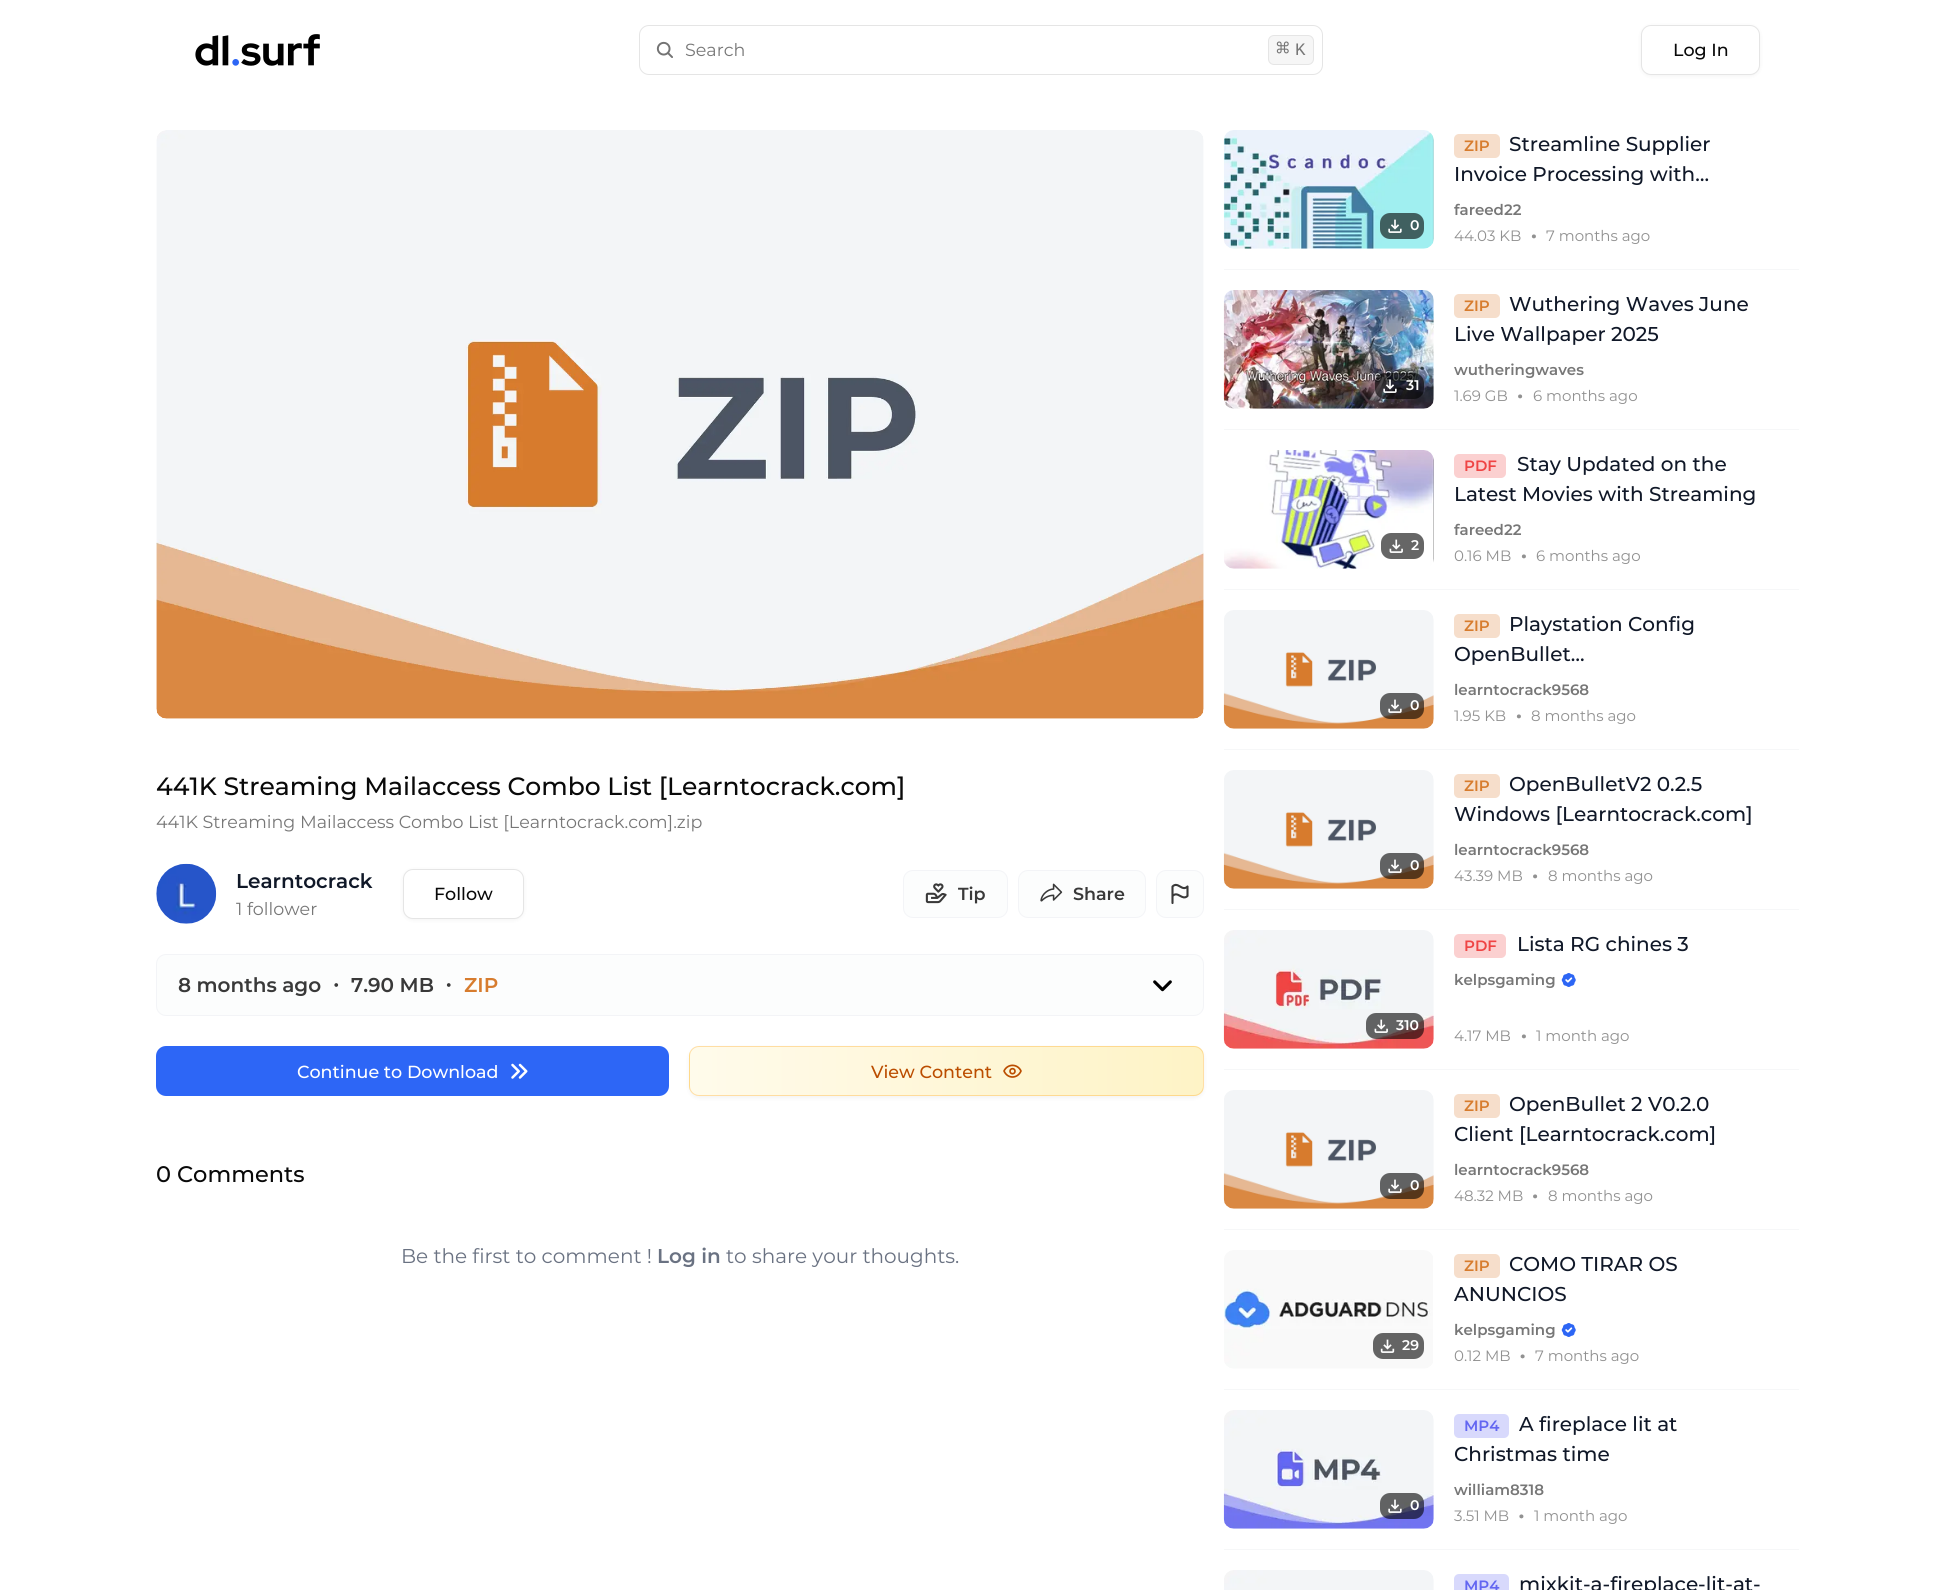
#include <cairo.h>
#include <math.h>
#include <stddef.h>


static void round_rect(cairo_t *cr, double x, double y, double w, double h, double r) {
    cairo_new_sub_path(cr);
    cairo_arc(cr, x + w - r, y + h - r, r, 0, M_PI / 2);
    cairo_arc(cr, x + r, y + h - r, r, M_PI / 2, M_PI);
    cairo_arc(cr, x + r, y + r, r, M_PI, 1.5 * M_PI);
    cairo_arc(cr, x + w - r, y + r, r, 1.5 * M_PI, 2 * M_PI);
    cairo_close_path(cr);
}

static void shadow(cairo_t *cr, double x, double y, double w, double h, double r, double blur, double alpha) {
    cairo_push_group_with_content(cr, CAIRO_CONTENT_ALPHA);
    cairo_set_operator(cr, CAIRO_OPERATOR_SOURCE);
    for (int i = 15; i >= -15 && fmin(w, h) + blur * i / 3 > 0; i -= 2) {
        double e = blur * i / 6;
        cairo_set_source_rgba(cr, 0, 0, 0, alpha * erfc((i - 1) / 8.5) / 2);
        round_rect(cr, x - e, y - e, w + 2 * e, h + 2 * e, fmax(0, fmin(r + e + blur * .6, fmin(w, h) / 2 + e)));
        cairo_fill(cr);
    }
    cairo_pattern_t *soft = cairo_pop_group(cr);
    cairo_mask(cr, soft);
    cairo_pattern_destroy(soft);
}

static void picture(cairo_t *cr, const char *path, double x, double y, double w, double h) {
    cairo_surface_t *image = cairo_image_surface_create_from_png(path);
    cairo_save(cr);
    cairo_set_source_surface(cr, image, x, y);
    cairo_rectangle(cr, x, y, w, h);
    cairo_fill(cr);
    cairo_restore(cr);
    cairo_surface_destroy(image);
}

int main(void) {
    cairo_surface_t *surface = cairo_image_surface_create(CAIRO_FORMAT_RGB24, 1954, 1590);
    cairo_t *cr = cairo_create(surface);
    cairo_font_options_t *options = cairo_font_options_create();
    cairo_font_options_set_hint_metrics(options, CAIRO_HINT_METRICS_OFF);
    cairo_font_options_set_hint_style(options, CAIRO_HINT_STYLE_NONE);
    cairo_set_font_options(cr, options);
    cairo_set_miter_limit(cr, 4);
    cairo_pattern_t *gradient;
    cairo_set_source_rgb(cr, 1, 1, 1);
    cairo_paint(cr);
    picture(cr, "img1.png", 195, 34, 125, 32);
    round_rect(cr, 639.5, 25.5, 683, 49, 9.5);
    cairo_set_source_rgb(cr, 0.898, 0.898, 0.898);
    cairo_set_line_width(cr, 1);
    cairo_stroke(cr);
    picture(cr, "img2.png", 656, 41, 17, 17);
    cairo_select_font_face(cr, "Montserrat", CAIRO_FONT_SLANT_NORMAL, CAIRO_FONT_WEIGHT_NORMAL);
    cairo_set_font_size(cr, 17.5);
    cairo_set_source_rgb(cr, 0.467, 0.467, 0.467);
    cairo_move_to(cr, 685, 56);
    cairo_show_text(cr, "Search");
    cairo_set_source_rgb(cr, 0.961, 0.961, 0.961);
    round_rect(cr, 1268.5, 35.5, 45, 29, 5.5);
    cairo_fill_preserve(cr);
    cairo_set_source_rgb(cr, 0.898, 0.898, 0.898);
    cairo_stroke(cr);
    cairo_select_font_face(cr, "DejaVu Sans Mono", CAIRO_FONT_SLANT_NORMAL, CAIRO_FONT_WEIGHT_NORMAL);
    cairo_set_font_size(cr, 22.5);
    cairo_set_source_rgb(cr, 0.467, 0.467, 0.467);
    cairo_move_to(cr, 1276, 56);
    cairo_show_text(cr, "⌘");
    cairo_select_font_face(cr, "Liberation Mono", CAIRO_FONT_SLANT_NORMAL, CAIRO_FONT_WEIGHT_NORMAL);
    cairo_set_font_size(cr, 17.5);
    cairo_move_to(cr, 1295, 55);
    cairo_show_text(cr, "K");
    cairo_set_source_rgb(cr, 0, 0, 0);
    shadow(cr, 1641, 26, 119, 50, 10, 2, 0.05);
    cairo_set_source_rgb(cr, 1, 1, 1);
    round_rect(cr, 1641.5, 25.5, 118, 49, 9.5);
    cairo_fill_preserve(cr);
    cairo_set_source_rgb(cr, 0.898, 0.898, 0.898);
    cairo_stroke(cr);
    cairo_select_font_face(cr, "Montserrat Medium", CAIRO_FONT_SLANT_NORMAL, CAIRO_FONT_WEIGHT_NORMAL);
    cairo_set_source_rgb(cr, 0.039, 0.039, 0.039);
    cairo_move_to(cr, 1673, 56);
    cairo_show_text(cr, "Log In");
    picture(cr, "img3.png", 156, 130, 1048, 589);
    cairo_set_font_size(cr, 25);
    cairo_move_to(cr, 156, 795);
    cairo_show_text(cr, "441K Streaming Mailaccess Combo List [Learntocrack.com]");
    cairo_select_font_face(cr, "Montserrat", CAIRO_FONT_SLANT_NORMAL, CAIRO_FONT_WEIGHT_NORMAL);
    cairo_set_font_size(cr, 17.5);
    cairo_set_source_rgb(cr, 0.467, 0.467, 0.467);
    cairo_move_to(cr, 156, 828);
    cairo_show_text(cr, "441K Streaming Mailaccess Combo List [Learntocrack.com].zip");
    picture(cr, "img4.png", 156, 863, 61, 61);
    cairo_select_font_face(cr, "Montserrat SemiBold", CAIRO_FONT_SLANT_NORMAL, CAIRO_FONT_WEIGHT_NORMAL);
    cairo_set_font_size(cr, 20);
    cairo_set_source_rgb(cr, 0.063, 0.094, 0.157);
    cairo_move_to(cr, 236, 888);
    cairo_show_text(cr, "Learntocrack");
    cairo_select_font_face(cr, "Montserrat", CAIRO_FONT_SLANT_NORMAL, CAIRO_FONT_WEIGHT_NORMAL);
    cairo_set_font_size(cr, 17.5);
    cairo_set_source_rgb(cr, 0.467, 0.467, 0.467);
    cairo_move_to(cr, 236, 915);
    cairo_show_text(cr, "1 follower");
    cairo_set_source_rgb(cr, 0, 0, 0);
    shadow(cr, 403, 870, 121, 50, 10, 2, 0.05);
    cairo_set_source_rgb(cr, 1, 1, 1);
    round_rect(cr, 403.5, 869.5, 120, 49, 9.5);
    cairo_fill_preserve(cr);
    cairo_set_source_rgb(cr, 0.898, 0.898, 0.898);
    cairo_stroke(cr);
    cairo_select_font_face(cr, "Montserrat Medium", CAIRO_FONT_SLANT_NORMAL, CAIRO_FONT_WEIGHT_NORMAL);
    cairo_set_source_rgb(cr, 0.039, 0.039, 0.039);
    cairo_move_to(cr, 434, 900);
    cairo_show_text(cr, "Follow");
    cairo_set_source_rgb(cr, 0.988, 0.992, 0.992);
    round_rect(cr, 903.5, 870.5, 104, 47, 9.5);
    cairo_fill_preserve(cr);
    cairo_set_source_rgb(cr, 0.953, 0.957, 0.965);
    cairo_stroke(cr);
    picture(cr, "img5.png", 925, 883, 22, 21);
    cairo_select_font_face(cr, "Montserrat SemiBold", CAIRO_FONT_SLANT_NORMAL, CAIRO_FONT_WEIGHT_NORMAL);
    cairo_set_source_rgb(cr, 0.224, 0.224, 0.224);
    cairo_move_to(cr, 958, 900);
    cairo_show_text(cr, "Tip");
    cairo_set_source_rgb(cr, 0.988, 0.992, 0.992);
    round_rect(cr, 1018.5, 870.5, 127, 47, 9.5);
    cairo_fill_preserve(cr);
    cairo_set_source_rgb(cr, 0.953, 0.957, 0.965);
    cairo_stroke(cr);
    picture(cr, "img6.png", 1040, 883, 23, 19);
    cairo_set_source_rgb(cr, 0.224, 0.224, 0.224);
    cairo_move_to(cr, 1073, 900);
    cairo_show_text(cr, "Share");
    cairo_set_source_rgb(cr, 0.988, 0.992, 0.992);
    round_rect(cr, 1156.5, 870.5, 47, 47, 9.5);
    cairo_fill_preserve(cr);
    cairo_set_source_rgb(cr, 0.953, 0.957, 0.965);
    cairo_stroke(cr);
    cairo_new_path(cr);
    cairo_move_to(cr, 1172.5, 886.5);
    cairo_curve_to(cr, 1178, 881, 1182, 892, 1187.5, 886.5);
    cairo_line_to(cr, 1187.5, 896);
    cairo_curve_to(cr, 1182, 901, 1178, 890.5, 1172.5, 896);
    cairo_close_path(cr);
    cairo_move_to(cr, 1172.5, 903);
    cairo_line_to(cr, 1172.5, 896);
    cairo_set_source_rgb(cr, 0.224, 0.224, 0.224);
    cairo_set_line_width(cr, 2.1);
    cairo_set_line_cap(cr, CAIRO_LINE_CAP_ROUND);
    cairo_set_line_join(cr, CAIRO_LINE_JOIN_ROUND);
    cairo_stroke(cr);
    cairo_set_source_rgb(cr, 0.988, 0.992, 0.992);
    round_rect(cr, 156.5, 954.5, 1047, 61, 9.5);
    cairo_fill_preserve(cr);
    cairo_set_source_rgb(cr, 0.953, 0.957, 0.965);
    cairo_set_line_width(cr, 1);
    cairo_set_line_cap(cr, CAIRO_LINE_CAP_BUTT);
    cairo_set_line_join(cr, CAIRO_LINE_JOIN_MITER);
    cairo_stroke(cr);
    cairo_set_font_size(cr, 20);
    cairo_set_source_rgb(cr, 0.224, 0.224, 0.224);
    cairo_move_to(cr, 178, 992);
    cairo_show_text(cr, "8 months ago");
    picture(cr, "img7.png", 334, 983, 5, 4);
    cairo_move_to(cr, 351, 992);
    cairo_show_text(cr, "7.90 MB");
    picture(cr, "img8.png", 446, 983, 5, 4);
    cairo_set_source_rgb(cr, 0.843, 0.486, 0.18);
    cairo_move_to(cr, 464, 992);
    cairo_show_text(cr, "ZIP");
    picture(cr, "img9.png", 1153, 980, 19, 12);
    cairo_set_source_rgb(cr, 0.176, 0.4, 0.961);
    round_rect(cr, 156, 1046, 513, 50, 10);
    cairo_fill(cr);
    cairo_select_font_face(cr, "Montserrat Medium", CAIRO_FONT_SLANT_NORMAL, CAIRO_FONT_WEIGHT_NORMAL);
    cairo_set_font_size(cr, 17.5);
    cairo_set_source_rgb(cr, 1, 1, 1);
    cairo_move_to(cr, 297, 1078);
    cairo_show_text(cr, "Continue to Download");
    picture(cr, "img10.png", 511, 1063, 17, 16);
    cairo_set_source_rgb(cr, 0, 0, 0);
    shadow(cr, 689, 1048, 515, 50, 10, 2, 0.05);
    cairo_save(cr);
    round_rect(cr, 689, 1046, 515, 50, 10);
    cairo_clip(cr);
    gradient = cairo_pattern_create_linear(178, 1071, 690, 1071);
    cairo_pattern_add_color_stop_rgba(gradient, 0, 1, 0.984, 0.922, 1);
    cairo_pattern_add_color_stop_rgba(gradient, 1, 0.996, 0.953, 0.776, 1);
    cairo_set_source(cr, gradient);
    cairo_pattern_destroy(gradient);
    cairo_rectangle(cr, 689, 1046, 1, 50);
    cairo_fill(cr);
    gradient = cairo_pattern_create_linear(690, 1071, 1203, 1071);
    cairo_pattern_add_color_stop_rgba(gradient, 0, 1, 0.984, 0.922, 1);
    cairo_pattern_add_color_stop_rgba(gradient, 1, 0.996, 0.953, 0.776, 1);
    cairo_set_source(cr, gradient);
    cairo_pattern_destroy(gradient);
    cairo_rectangle(cr, 690, 1046, 513, 50);
    cairo_fill(cr);
    gradient = cairo_pattern_create_linear(1203, 1071, 1715, 1071);
    cairo_pattern_add_color_stop_rgba(gradient, 0, 1, 0.984, 0.922, 1);
    cairo_pattern_add_color_stop_rgba(gradient, 1, 0.996, 0.953, 0.776, 1);
    cairo_set_source(cr, gradient);
    cairo_pattern_destroy(gradient);
    cairo_rectangle(cr, 1203, 1046, 1, 50);
    cairo_fill(cr);
    cairo_restore(cr);
    round_rect(cr, 689.5, 1046.5, 514, 49, 9.5);
    cairo_set_source_rgba(cr, 0.996, 0.604, 0, 0.3);
    cairo_stroke(cr);
    cairo_set_source_rgb(cr, 0.733, 0.302, 0);
    cairo_move_to(cr, 871, 1078);
    cairo_show_text(cr, "View Content");
    cairo_new_path(cr);
    cairo_move_to(cr, 1004, 1071);
    cairo_curve_to(cr, 1007.5, 1063.5, 1017.5, 1063.5, 1021, 1071);
    cairo_curve_to(cr, 1017.5, 1079, 1007.5, 1079, 1004, 1071);
    cairo_close_path(cr);
    cairo_set_line_width(cr, 1.7);
    cairo_set_line_cap(cr, CAIRO_LINE_CAP_ROUND);
    cairo_set_line_join(cr, CAIRO_LINE_JOIN_ROUND);
    cairo_stroke(cr);
    cairo_arc(cr, 1012.5, 1071.2, 2.5, 0, 2 * M_PI);
    cairo_set_line_cap(cr, CAIRO_LINE_CAP_BUTT);
    cairo_set_line_join(cr, CAIRO_LINE_JOIN_MITER);
    cairo_stroke(cr);
    cairo_set_font_size(cr, 22.5);
    cairo_set_source_rgb(cr, 0.039, 0.039, 0.039);
    cairo_move_to(cr, 156, 1182);
    cairo_show_text(cr, "0 Comments");
    cairo_select_font_face(cr, "Montserrat", CAIRO_FONT_SLANT_NORMAL, CAIRO_FONT_WEIGHT_NORMAL);
    cairo_set_font_size(cr, 20);
    cairo_set_source_rgb(cr, 0.416, 0.447, 0.51);
    cairo_move_to(cr, 401, 1263);
    cairo_show_text(cr, "Be the first to comment !");
    cairo_select_font_face(cr, "Montserrat SemiBold", CAIRO_FONT_SLANT_NORMAL, CAIRO_FONT_WEIGHT_NORMAL);
    cairo_move_to(cr, 657, 1263);
    cairo_show_text(cr, "Log in");
    cairo_select_font_face(cr, "Montserrat", CAIRO_FONT_SLANT_NORMAL, CAIRO_FONT_WEIGHT_NORMAL);
    cairo_move_to(cr, 726, 1263);
    cairo_show_text(cr, "to share your thoughts.");
    cairo_set_source_rgb(cr, 0.961, 0.965, 0.969);
    cairo_rectangle(cr, 1224, 269, 575, 1);
    cairo_fill(cr);
    picture(cr, "img11.png", 1223, 130, 211, 119);
    cairo_set_source_rgba(cr, 0, 0, 0, 0.6);
    round_rect(cr, 1380, 213, 44, 26, 10);
    cairo_fill(cr);
    picture(cr, "img12.png", 1388, 219, 14, 14);
    cairo_select_font_face(cr, "Montserrat SemiBold", CAIRO_FONT_SLANT_NORMAL, CAIRO_FONT_WEIGHT_NORMAL);
    cairo_set_font_size(cr, 14);
    cairo_set_source_rgb(cr, 1, 1, 1);
    cairo_move_to(cr, 1410, 230);
    cairo_show_text(cr, "0");
    cairo_set_source_rgb(cr, 0.961, 0.871, 0.796);
    round_rect(cr, 1454, 134, 46, 24, 5);
    cairo_fill(cr);
    cairo_set_font_size(cr, 15);
    cairo_set_source_rgb(cr, 0.843, 0.486, 0.18);
    cairo_move_to(cr, 1464, 151);
    cairo_show_text(cr, "ZIP");
    cairo_select_font_face(cr, "Montserrat Medium", CAIRO_FONT_SLANT_NORMAL, CAIRO_FONT_WEIGHT_NORMAL);
    cairo_set_font_size(cr, 20);
    cairo_set_source_rgb(cr, 0.063, 0.094, 0.157);
    cairo_move_to(cr, 1509, 151);
    cairo_show_text(cr, "Streamline Supplier");
    cairo_move_to(cr, 1454, 181);
    cairo_show_text(cr, "Invoice Processing with…");
    cairo_select_font_face(cr, "Montserrat SemiBold", CAIRO_FONT_SLANT_NORMAL, CAIRO_FONT_WEIGHT_NORMAL);
    cairo_set_font_size(cr, 15);
    cairo_set_source_rgb(cr, 0.467, 0.467, 0.467);
    cairo_move_to(cr, 1454, 215);
    cairo_show_text(cr, "fareed22");
    cairo_select_font_face(cr, "Montserrat", CAIRO_FONT_SLANT_NORMAL, CAIRO_FONT_WEIGHT_NORMAL);
    cairo_set_source_rgb(cr, 0.569, 0.569, 0.569);
    cairo_move_to(cr, 1454, 241);
    cairo_show_text(cr, "44.03 KB");
    cairo_new_path(cr);
    cairo_arc(cr, 1533.9, 236.4, 1, 0, 2 * M_PI);
    cairo_set_line_width(cr, 2.1);
    cairo_stroke(cr);
    cairo_move_to(cr, 1546, 241);
    cairo_show_text(cr, "7 months ago");
    cairo_set_source_rgb(cr, 0.961, 0.965, 0.969);
    cairo_rectangle(cr, 1224, 429, 575, 1);
    cairo_fill(cr);
    picture(cr, "img13.png", 1223, 290, 211, 119);
    cairo_set_source_rgba(cr, 0, 0, 0, 0.6);
    round_rect(cr, 1375, 373, 49, 26, 10);
    cairo_fill(cr);
    picture(cr, "img14.png", 1383, 379, 14, 14);
    cairo_select_font_face(cr, "Montserrat SemiBold", CAIRO_FONT_SLANT_NORMAL, CAIRO_FONT_WEIGHT_NORMAL);
    cairo_set_font_size(cr, 14);
    cairo_set_source_rgb(cr, 1, 1, 1);
    cairo_move_to(cr, 1406, 390);
    cairo_show_text(cr, "31");
    cairo_set_source_rgb(cr, 0.961, 0.871, 0.796);
    round_rect(cr, 1454, 294, 46, 24, 5);
    cairo_fill(cr);
    cairo_set_font_size(cr, 15);
    cairo_set_source_rgb(cr, 0.843, 0.486, 0.18);
    cairo_move_to(cr, 1464, 311);
    cairo_show_text(cr, "ZIP");
    cairo_select_font_face(cr, "Montserrat Medium", CAIRO_FONT_SLANT_NORMAL, CAIRO_FONT_WEIGHT_NORMAL);
    cairo_set_font_size(cr, 20);
    cairo_set_source_rgb(cr, 0.063, 0.094, 0.157);
    cairo_move_to(cr, 1509, 311);
    cairo_show_text(cr, "Wuthering Waves June");
    cairo_move_to(cr, 1454, 341);
    cairo_show_text(cr, "Live Wallpaper 2025");
    cairo_select_font_face(cr, "Montserrat SemiBold", CAIRO_FONT_SLANT_NORMAL, CAIRO_FONT_WEIGHT_NORMAL);
    cairo_set_font_size(cr, 15);
    cairo_set_source_rgb(cr, 0.467, 0.467, 0.467);
    cairo_move_to(cr, 1454, 375);
    cairo_show_text(cr, "wutheringwaves");
    cairo_select_font_face(cr, "Montserrat", CAIRO_FONT_SLANT_NORMAL, CAIRO_FONT_WEIGHT_NORMAL);
    cairo_set_source_rgb(cr, 0.569, 0.569, 0.569);
    cairo_move_to(cr, 1454, 401);
    cairo_show_text(cr, "1.69 GB");
    cairo_new_path(cr);
    cairo_arc(cr, 1520.1, 396.4, 1, 0, 2 * M_PI);
    cairo_stroke(cr);
    cairo_move_to(cr, 1533, 401);
    cairo_show_text(cr, "6 months ago");
    cairo_set_source_rgb(cr, 0.961, 0.965, 0.969);
    cairo_rectangle(cr, 1224, 589, 575, 1);
    cairo_fill(cr);
    picture(cr, "img15.png", 1224, 450, 210, 119);
    cairo_set_source_rgb(cr, 0.4, 0.4, 0.4);
    round_rect(cr, 1381, 533, 43, 26, 10);
    cairo_fill(cr);
    picture(cr, "img16.png", 1389, 539, 14, 14);
    cairo_select_font_face(cr, "Montserrat SemiBold", CAIRO_FONT_SLANT_NORMAL, CAIRO_FONT_WEIGHT_NORMAL);
    cairo_set_font_size(cr, 14);
    cairo_set_source_rgb(cr, 1, 1, 1);
    cairo_move_to(cr, 1411, 550);
    cairo_show_text(cr, "2");
    cairo_set_source_rgb(cr, 0.984, 0.816, 0.816);
    round_rect(cr, 1454, 454, 52, 24, 5);
    cairo_fill(cr);
    cairo_set_font_size(cr, 15);
    cairo_set_source_rgb(cr, 0.937, 0.267, 0.267);
    cairo_move_to(cr, 1464, 471);
    cairo_show_text(cr, "PDF");
    cairo_select_font_face(cr, "Montserrat Medium", CAIRO_FONT_SLANT_NORMAL, CAIRO_FONT_WEIGHT_NORMAL);
    cairo_set_font_size(cr, 20);
    cairo_set_source_rgb(cr, 0.063, 0.094, 0.157);
    cairo_move_to(cr, 1517, 471);
    cairo_show_text(cr, "Stay Updated on the");
    cairo_move_to(cr, 1454, 501);
    cairo_show_text(cr, "Latest Movies with Streaming");
    cairo_select_font_face(cr, "Montserrat SemiBold", CAIRO_FONT_SLANT_NORMAL, CAIRO_FONT_WEIGHT_NORMAL);
    cairo_set_font_size(cr, 15);
    cairo_set_source_rgb(cr, 0.467, 0.467, 0.467);
    cairo_move_to(cr, 1454, 535);
    cairo_show_text(cr, "fareed22");
    cairo_select_font_face(cr, "Montserrat", CAIRO_FONT_SLANT_NORMAL, CAIRO_FONT_WEIGHT_NORMAL);
    cairo_set_source_rgb(cr, 0.569, 0.569, 0.569);
    cairo_move_to(cr, 1454, 561);
    cairo_show_text(cr, "0.16 MB");
    cairo_new_path(cr);
    cairo_arc(cr, 1523.9, 556.4, 1, 0, 2 * M_PI);
    cairo_stroke(cr);
    cairo_move_to(cr, 1536, 561);
    cairo_show_text(cr, "6 months ago");
    cairo_set_source_rgb(cr, 0.961, 0.965, 0.969);
    cairo_rectangle(cr, 1224, 749, 575, 1);
    cairo_fill(cr);
    picture(cr, "img17.png", 1223, 610, 211, 119);
    cairo_set_source_rgba(cr, 0, 0, 0, 0.6);
    round_rect(cr, 1380, 693, 44, 26, 10);
    cairo_fill(cr);
    picture(cr, "img18.png", 1388, 699, 14, 14);
    cairo_select_font_face(cr, "Montserrat SemiBold", CAIRO_FONT_SLANT_NORMAL, CAIRO_FONT_WEIGHT_NORMAL);
    cairo_set_font_size(cr, 14);
    cairo_set_source_rgb(cr, 1, 1, 1);
    cairo_move_to(cr, 1410, 710);
    cairo_show_text(cr, "0");
    cairo_set_source_rgb(cr, 0.961, 0.871, 0.796);
    round_rect(cr, 1454, 614, 46, 24, 5);
    cairo_fill(cr);
    cairo_set_font_size(cr, 15);
    cairo_set_source_rgb(cr, 0.843, 0.486, 0.18);
    cairo_move_to(cr, 1464, 631);
    cairo_show_text(cr, "ZIP");
    cairo_select_font_face(cr, "Montserrat Medium", CAIRO_FONT_SLANT_NORMAL, CAIRO_FONT_WEIGHT_NORMAL);
    cairo_set_font_size(cr, 20);
    cairo_set_source_rgb(cr, 0.063, 0.094, 0.157);
    cairo_move_to(cr, 1509, 631);
    cairo_show_text(cr, "Playstation Config");
    cairo_move_to(cr, 1454, 661);
    cairo_show_text(cr, "OpenBullet…");
    cairo_select_font_face(cr, "Montserrat SemiBold", CAIRO_FONT_SLANT_NORMAL, CAIRO_FONT_WEIGHT_NORMAL);
    cairo_set_font_size(cr, 15);
    cairo_set_source_rgb(cr, 0.467, 0.467, 0.467);
    cairo_move_to(cr, 1454, 695);
    cairo_show_text(cr, "learntocrack9568");
    cairo_select_font_face(cr, "Montserrat", CAIRO_FONT_SLANT_NORMAL, CAIRO_FONT_WEIGHT_NORMAL);
    cairo_set_source_rgb(cr, 0.569, 0.569, 0.569);
    cairo_move_to(cr, 1454, 721);
    cairo_show_text(cr, "1.95 KB");
    cairo_new_path(cr);
    cairo_arc(cr, 1518.9, 716.4, 1, 0, 2 * M_PI);
    cairo_stroke(cr);
    cairo_move_to(cr, 1531, 721);
    cairo_show_text(cr, "8 months ago");
    cairo_set_source_rgb(cr, 0.961, 0.965, 0.969);
    cairo_rectangle(cr, 1224, 909, 575, 1);
    cairo_fill(cr);
    picture(cr, "img17.png", 1223, 770, 211, 119);
    cairo_set_source_rgba(cr, 0, 0, 0, 0.6);
    round_rect(cr, 1380, 853, 44, 26, 10);
    cairo_fill(cr);
    picture(cr, "img18.png", 1388, 859, 14, 14);
    cairo_select_font_face(cr, "Montserrat SemiBold", CAIRO_FONT_SLANT_NORMAL, CAIRO_FONT_WEIGHT_NORMAL);
    cairo_set_font_size(cr, 14);
    cairo_set_source_rgb(cr, 1, 1, 1);
    cairo_move_to(cr, 1410, 870);
    cairo_show_text(cr, "0");
    cairo_set_source_rgb(cr, 0.961, 0.871, 0.796);
    round_rect(cr, 1454, 774, 46, 24, 5);
    cairo_fill(cr);
    cairo_set_font_size(cr, 15);
    cairo_set_source_rgb(cr, 0.843, 0.486, 0.18);
    cairo_move_to(cr, 1464, 791);
    cairo_show_text(cr, "ZIP");
    cairo_select_font_face(cr, "Montserrat Medium", CAIRO_FONT_SLANT_NORMAL, CAIRO_FONT_WEIGHT_NORMAL);
    cairo_set_font_size(cr, 20);
    cairo_set_source_rgb(cr, 0.063, 0.094, 0.157);
    cairo_move_to(cr, 1509, 791);
    cairo_show_text(cr, "OpenBulletV2 0.2.5");
    cairo_move_to(cr, 1454, 821);
    cairo_show_text(cr, "Windows [Learntocrack.com]");
    cairo_select_font_face(cr, "Montserrat SemiBold", CAIRO_FONT_SLANT_NORMAL, CAIRO_FONT_WEIGHT_NORMAL);
    cairo_set_font_size(cr, 15);
    cairo_set_source_rgb(cr, 0.467, 0.467, 0.467);
    cairo_move_to(cr, 1454, 855);
    cairo_show_text(cr, "learntocrack9568");
    cairo_select_font_face(cr, "Montserrat", CAIRO_FONT_SLANT_NORMAL, CAIRO_FONT_WEIGHT_NORMAL);
    cairo_set_source_rgb(cr, 0.569, 0.569, 0.569);
    cairo_move_to(cr, 1454, 881);
    cairo_show_text(cr, "43.39 MB");
    cairo_new_path(cr);
    cairo_arc(cr, 1535.1, 876.4, 1, 0, 2 * M_PI);
    cairo_stroke(cr);
    cairo_move_to(cr, 1548, 881);
    cairo_show_text(cr, "8 months ago");
    cairo_set_source_rgb(cr, 0.961, 0.965, 0.969);
    cairo_rectangle(cr, 1224, 1069, 575, 1);
    cairo_fill(cr);
    picture(cr, "img19.png", 1223, 930, 211, 119);
    cairo_set_source_rgba(cr, 0, 0, 0, 0.6);
    round_rect(cr, 1366, 1013, 58, 26, 10);
    cairo_fill(cr);
    picture(cr, "img20.png", 1374, 1019, 14, 14);
    cairo_select_font_face(cr, "Montserrat SemiBold", CAIRO_FONT_SLANT_NORMAL, CAIRO_FONT_WEIGHT_NORMAL);
    cairo_set_font_size(cr, 14);
    cairo_set_source_rgb(cr, 1, 1, 1);
    cairo_move_to(cr, 1396, 1030);
    cairo_show_text(cr, "310");
    cairo_set_source_rgb(cr, 0.984, 0.816, 0.816);
    round_rect(cr, 1454, 934, 52, 24, 5);
    cairo_fill(cr);
    cairo_set_font_size(cr, 15);
    cairo_set_source_rgb(cr, 0.937, 0.267, 0.267);
    cairo_move_to(cr, 1464, 951);
    cairo_show_text(cr, "PDF");
    cairo_select_font_face(cr, "Montserrat Medium", CAIRO_FONT_SLANT_NORMAL, CAIRO_FONT_WEIGHT_NORMAL);
    cairo_set_font_size(cr, 20);
    cairo_set_source_rgb(cr, 0.063, 0.094, 0.157);
    cairo_move_to(cr, 1517, 951);
    cairo_show_text(cr, "Lista RG chines 3");
    cairo_select_font_face(cr, "Montserrat SemiBold", CAIRO_FONT_SLANT_NORMAL, CAIRO_FONT_WEIGHT_NORMAL);
    cairo_set_font_size(cr, 15);
    cairo_set_source_rgb(cr, 0.467, 0.467, 0.467);
    cairo_move_to(cr, 1454, 985);
    cairo_show_text(cr, "kelpsgaming");
    picture(cr, "img21.png", 1561, 973, 15, 14);
    cairo_select_font_face(cr, "Montserrat", CAIRO_FONT_SLANT_NORMAL, CAIRO_FONT_WEIGHT_NORMAL);
    cairo_set_source_rgb(cr, 0.569, 0.569, 0.569);
    cairo_move_to(cr, 1454, 1041);
    cairo_show_text(cr, "4.17 MB");
    cairo_new_path(cr);
    cairo_arc(cr, 1523.9, 1036.4, 1, 0, 2 * M_PI);
    cairo_stroke(cr);
    cairo_move_to(cr, 1536, 1041);
    cairo_show_text(cr, "1 month ago");
    cairo_set_source_rgb(cr, 0.961, 0.965, 0.969);
    cairo_rectangle(cr, 1224, 1229, 575, 1);
    cairo_fill(cr);
    picture(cr, "img22.png", 1223, 1090, 211, 119);
    cairo_set_source_rgba(cr, 0, 0, 0, 0.6);
    round_rect(cr, 1380, 1173, 44, 26, 10);
    cairo_fill(cr);
    picture(cr, "img18.png", 1388, 1179, 14, 14);
    cairo_select_font_face(cr, "Montserrat SemiBold", CAIRO_FONT_SLANT_NORMAL, CAIRO_FONT_WEIGHT_NORMAL);
    cairo_set_font_size(cr, 14);
    cairo_set_source_rgb(cr, 1, 1, 1);
    cairo_move_to(cr, 1410, 1190);
    cairo_show_text(cr, "0");
    cairo_set_source_rgb(cr, 0.961, 0.871, 0.796);
    round_rect(cr, 1454, 1094, 46, 24, 5);
    cairo_fill(cr);
    cairo_set_font_size(cr, 15);
    cairo_set_source_rgb(cr, 0.843, 0.486, 0.18);
    cairo_move_to(cr, 1464, 1111);
    cairo_show_text(cr, "ZIP");
    cairo_select_font_face(cr, "Montserrat Medium", CAIRO_FONT_SLANT_NORMAL, CAIRO_FONT_WEIGHT_NORMAL);
    cairo_set_font_size(cr, 20);
    cairo_set_source_rgb(cr, 0.063, 0.094, 0.157);
    cairo_move_to(cr, 1509, 1111);
    cairo_show_text(cr, "OpenBullet 2 V0.2.0");
    cairo_move_to(cr, 1454, 1141);
    cairo_show_text(cr, "Client [Learntocrack.com]");
    cairo_select_font_face(cr, "Montserrat SemiBold", CAIRO_FONT_SLANT_NORMAL, CAIRO_FONT_WEIGHT_NORMAL);
    cairo_set_font_size(cr, 15);
    cairo_set_source_rgb(cr, 0.467, 0.467, 0.467);
    cairo_move_to(cr, 1454, 1175);
    cairo_show_text(cr, "learntocrack9568");
    cairo_select_font_face(cr, "Montserrat", CAIRO_FONT_SLANT_NORMAL, CAIRO_FONT_WEIGHT_NORMAL);
    cairo_set_source_rgb(cr, 0.569, 0.569, 0.569);
    cairo_move_to(cr, 1454, 1201);
    cairo_show_text(cr, "48.32 MB");
    cairo_new_path(cr);
    cairo_arc(cr, 1535.1, 1196.4, 1, 0, 2 * M_PI);
    cairo_stroke(cr);
    cairo_move_to(cr, 1548, 1201);
    cairo_show_text(cr, "8 months ago");
    cairo_set_source_rgb(cr, 0.961, 0.965, 0.969);
    cairo_rectangle(cr, 1224, 1389, 575, 1);
    cairo_fill(cr);
    picture(cr, "img23.png", 1224, 1250, 209, 119);
    cairo_set_source_rgb(cr, 0.392, 0.392, 0.392);
    round_rect(cr, 1373, 1333, 51, 26, 10);
    cairo_fill(cr);
    picture(cr, "img24.png", 1380, 1339, 15, 14);
    cairo_select_font_face(cr, "Montserrat SemiBold", CAIRO_FONT_SLANT_NORMAL, CAIRO_FONT_WEIGHT_NORMAL);
    cairo_set_font_size(cr, 14);
    cairo_set_source_rgb(cr, 1, 1, 1);
    cairo_move_to(cr, 1402, 1350);
    cairo_show_text(cr, "29");
    cairo_set_source_rgb(cr, 0.961, 0.871, 0.796);
    round_rect(cr, 1454, 1254, 46, 24, 5);
    cairo_fill(cr);
    cairo_set_font_size(cr, 15);
    cairo_set_source_rgb(cr, 0.843, 0.486, 0.18);
    cairo_move_to(cr, 1464, 1271);
    cairo_show_text(cr, "ZIP");
    cairo_select_font_face(cr, "Montserrat Medium", CAIRO_FONT_SLANT_NORMAL, CAIRO_FONT_WEIGHT_NORMAL);
    cairo_set_font_size(cr, 20);
    cairo_set_source_rgb(cr, 0.063, 0.094, 0.157);
    cairo_move_to(cr, 1509, 1271);
    cairo_show_text(cr, "COMO TIRAR OS");
    cairo_move_to(cr, 1454, 1301);
    cairo_show_text(cr, "ANUNCIOS");
    cairo_select_font_face(cr, "Montserrat SemiBold", CAIRO_FONT_SLANT_NORMAL, CAIRO_FONT_WEIGHT_NORMAL);
    cairo_set_font_size(cr, 15);
    cairo_set_source_rgb(cr, 0.467, 0.467, 0.467);
    cairo_move_to(cr, 1454, 1335);
    cairo_show_text(cr, "kelpsgaming");
    picture(cr, "img21.png", 1561, 1323, 15, 14);
    cairo_select_font_face(cr, "Montserrat", CAIRO_FONT_SLANT_NORMAL, CAIRO_FONT_WEIGHT_NORMAL);
    cairo_set_source_rgb(cr, 0.569, 0.569, 0.569);
    cairo_move_to(cr, 1454, 1361);
    cairo_show_text(cr, "0.12 MB");
    cairo_new_path(cr);
    cairo_arc(cr, 1522.6, 1356.4, 1, 0, 2 * M_PI);
    cairo_stroke(cr);
    cairo_move_to(cr, 1535, 1361);
    cairo_show_text(cr, "7 months ago");
    cairo_set_source_rgb(cr, 0.961, 0.965, 0.969);
    cairo_rectangle(cr, 1224, 1549, 575, 1);
    cairo_fill(cr);
    picture(cr, "img25.png", 1223, 1410, 211, 119);
    cairo_set_source_rgba(cr, 0, 0, 0, 0.6);
    round_rect(cr, 1380, 1493, 44, 26, 10);
    cairo_fill(cr);
    picture(cr, "img26.png", 1388, 1499, 14, 14);
    cairo_select_font_face(cr, "Montserrat SemiBold", CAIRO_FONT_SLANT_NORMAL, CAIRO_FONT_WEIGHT_NORMAL);
    cairo_set_font_size(cr, 14);
    cairo_set_source_rgb(cr, 1, 1, 1);
    cairo_move_to(cr, 1410, 1510);
    cairo_show_text(cr, "0");
    cairo_set_source_rgb(cr, 0.847, 0.851, 0.988);
    round_rect(cr, 1454, 1414, 55, 24, 5);
    cairo_fill(cr);
    cairo_set_font_size(cr, 15);
    cairo_set_source_rgb(cr, 0.388, 0.4, 0.945);
    cairo_move_to(cr, 1464, 1431);
    cairo_show_text(cr, "MP4");
    cairo_select_font_face(cr, "Montserrat Medium", CAIRO_FONT_SLANT_NORMAL, CAIRO_FONT_WEIGHT_NORMAL);
    cairo_set_font_size(cr, 20);
    cairo_set_source_rgb(cr, 0.063, 0.094, 0.157);
    cairo_move_to(cr, 1519, 1431);
    cairo_show_text(cr, "A fireplace lit at");
    cairo_move_to(cr, 1454, 1461);
    cairo_show_text(cr, "Christmas time");
    cairo_select_font_face(cr, "Montserrat SemiBold", CAIRO_FONT_SLANT_NORMAL, CAIRO_FONT_WEIGHT_NORMAL);
    cairo_set_font_size(cr, 15);
    cairo_set_source_rgb(cr, 0.467, 0.467, 0.467);
    cairo_move_to(cr, 1454, 1495);
    cairo_show_text(cr, "william8318");
    cairo_select_font_face(cr, "Montserrat", CAIRO_FONT_SLANT_NORMAL, CAIRO_FONT_WEIGHT_NORMAL);
    cairo_set_source_rgb(cr, 0.569, 0.569, 0.569);
    cairo_move_to(cr, 1454, 1521);
    cairo_show_text(cr, "3.51 MB");
    cairo_new_path(cr);
    cairo_arc(cr, 1521.4, 1516.4, 1, 0, 2 * M_PI);
    cairo_stroke(cr);
    cairo_move_to(cr, 1534, 1521);
    cairo_show_text(cr, "1 month ago");
    picture(cr, "img27.png", 1224, 1570, 210, 20);
    cairo_set_source_rgb(cr, 0.847, 0.851, 0.988);
    round_rect(cr, 1454, 1574, 55, 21, 5);
    cairo_fill(cr);
    cairo_select_font_face(cr, "Montserrat SemiBold", CAIRO_FONT_SLANT_NORMAL, CAIRO_FONT_WEIGHT_NORMAL);
    cairo_set_source_rgb(cr, 0.388, 0.4, 0.945);
    cairo_move_to(cr, 1464, 1591);
    cairo_show_text(cr, "MP4");
    cairo_select_font_face(cr, "Montserrat Medium", CAIRO_FONT_SLANT_NORMAL, CAIRO_FONT_WEIGHT_NORMAL);
    cairo_set_font_size(cr, 20);
    cairo_set_source_rgb(cr, 0.063, 0.094, 0.157);
    cairo_move_to(cr, 1519, 1591);
    cairo_show_text(cr, "mixkit-a-fireplace-lit-at-");
    cairo_surface_write_to_png(surface, "page.png");
    cairo_font_options_destroy(options);
    cairo_destroy(cr);
    cairo_surface_destroy(surface);
    return 0;
}
